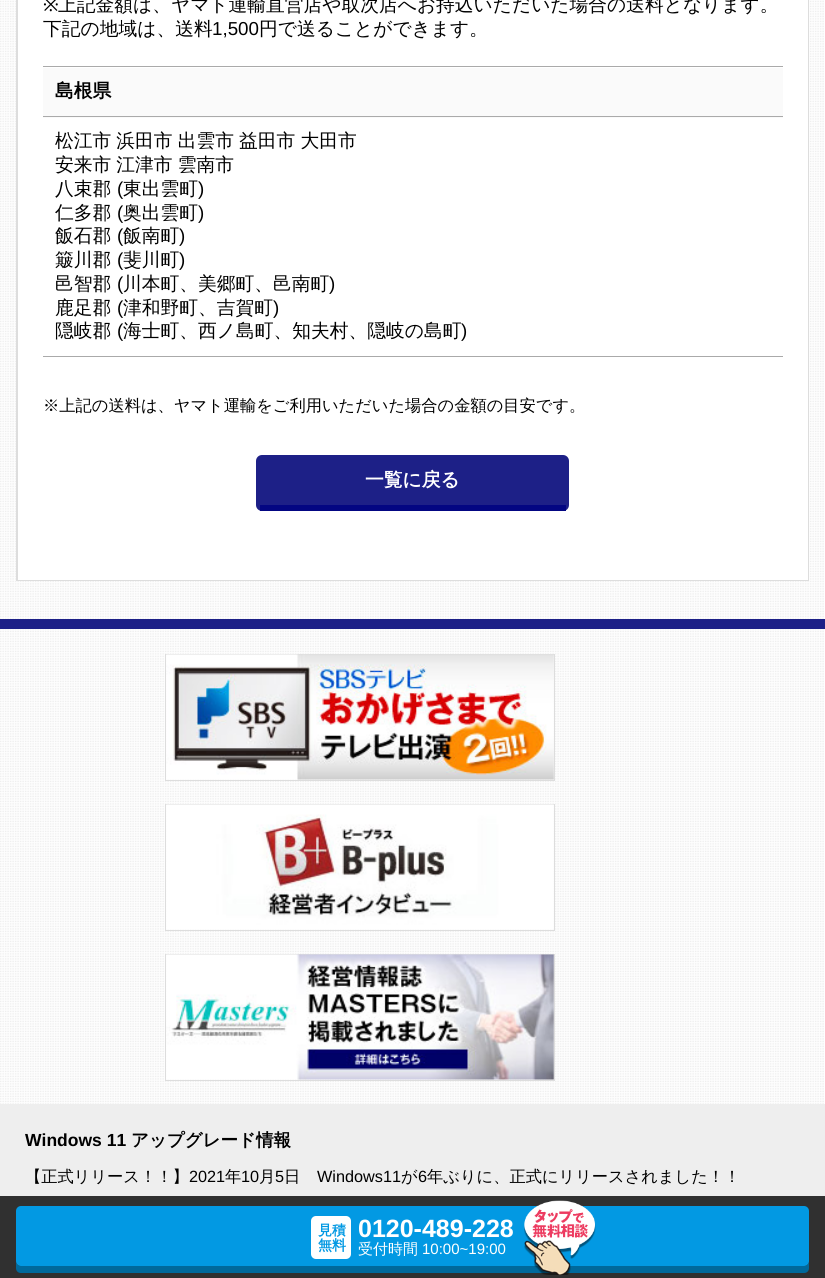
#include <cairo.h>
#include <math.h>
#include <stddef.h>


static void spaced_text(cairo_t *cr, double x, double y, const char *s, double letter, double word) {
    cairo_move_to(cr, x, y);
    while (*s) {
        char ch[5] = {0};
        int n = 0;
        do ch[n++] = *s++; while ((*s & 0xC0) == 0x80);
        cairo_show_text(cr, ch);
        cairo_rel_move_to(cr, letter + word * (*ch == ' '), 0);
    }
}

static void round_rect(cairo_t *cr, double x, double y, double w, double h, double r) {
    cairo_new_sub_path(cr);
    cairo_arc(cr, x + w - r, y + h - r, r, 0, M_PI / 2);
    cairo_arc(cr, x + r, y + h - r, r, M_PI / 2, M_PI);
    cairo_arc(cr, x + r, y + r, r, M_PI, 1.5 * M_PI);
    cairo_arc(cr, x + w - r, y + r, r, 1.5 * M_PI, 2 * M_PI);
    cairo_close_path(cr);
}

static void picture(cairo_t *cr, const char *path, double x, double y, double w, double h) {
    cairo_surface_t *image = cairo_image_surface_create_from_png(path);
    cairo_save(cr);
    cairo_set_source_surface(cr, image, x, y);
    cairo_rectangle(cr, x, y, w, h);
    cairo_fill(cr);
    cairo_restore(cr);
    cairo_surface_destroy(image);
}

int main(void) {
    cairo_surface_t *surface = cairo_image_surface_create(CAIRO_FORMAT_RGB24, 825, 1278);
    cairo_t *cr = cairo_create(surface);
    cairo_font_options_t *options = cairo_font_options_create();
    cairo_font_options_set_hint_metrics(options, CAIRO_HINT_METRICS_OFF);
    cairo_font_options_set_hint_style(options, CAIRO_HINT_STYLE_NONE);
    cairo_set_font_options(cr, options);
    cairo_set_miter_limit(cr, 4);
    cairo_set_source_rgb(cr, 1, 1, 1);
    cairo_paint(cr);
    picture(cr, "img1.png", 0, 0, 824, 1104);
    cairo_set_source_rgb(cr, 1, 1, 1);
    cairo_rectangle(cr, 18, 0, 790, 580);
    cairo_fill(cr);
    cairo_set_source_rgb(cr, 0.867, 0.867, 0.867);
    cairo_new_path(cr);
    cairo_move_to(cr, 809, -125);
    cairo_line_to(cr, 809, 581);
    cairo_line_to(cr, 808, 580);
    cairo_line_to(cr, 808, -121);
    cairo_close_path(cr);
    cairo_fill(cr);
    cairo_rectangle(cr, 16, 580, 793, 1);
    cairo_fill(cr);
    cairo_new_path(cr);
    cairo_move_to(cr, 16, 581);
    cairo_line_to(cr, 16, -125);
    cairo_line_to(cr, 18, -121);
    cairo_line_to(cr, 18, 580);
    cairo_close_path(cr);
    cairo_fill(cr);
    cairo_select_font_face(cr, "Noto Sans", CAIRO_FONT_SLANT_NORMAL, CAIRO_FONT_WEIGHT_NORMAL);
    cairo_set_font_size(cr, 18.75);
    cairo_set_source_rgb(cr, 0, 0, 0);
    cairo_move_to(cr, 43, 11);
    cairo_show_text(cr, "※");
    cairo_select_font_face(cr, "WenQuanYi Zen Hei Medium", CAIRO_FONT_SLANT_NORMAL, CAIRO_FONT_WEIGHT_NORMAL);
    cairo_move_to(cr, 58, 11);
    cairo_show_text(cr, "上記金額は、ヤマト運輸直営店や取次店へお持込いただいた場合の送料となります。");
    cairo_move_to(cr, 43, 35);
    cairo_show_text(cr, "下記の地域は、送料");
    cairo_select_font_face(cr, "Liberation Sans", CAIRO_FONT_SLANT_NORMAL, CAIRO_FONT_WEIGHT_NORMAL);
    cairo_move_to(cr, 212, 35);
    cairo_show_text(cr, "1,500");
    cairo_select_font_face(cr, "WenQuanYi Zen Hei Medium", CAIRO_FONT_SLANT_NORMAL, CAIRO_FONT_WEIGHT_NORMAL);
    cairo_move_to(cr, 259, 35);
    cairo_show_text(cr, "円で送ることができます。");
    cairo_set_source_rgb(cr, 0.667, 0.667, 0.667);
    cairo_rectangle(cr, 43, 66, 740, 1);
    cairo_fill(cr);
    cairo_set_source_rgb(cr, 0.98, 0.98, 0.98);
    cairo_rectangle(cr, 43, 68, 740, 50);
    cairo_fill(cr);
    cairo_set_source_rgb(cr, 0.667, 0.667, 0.667);
    cairo_rectangle(cr, 43, 116, 740, 1);
    cairo_fill(cr);
    cairo_select_font_face(cr, "WenQuanYi Zen Hei", CAIRO_FONT_SLANT_NORMAL, CAIRO_FONT_WEIGHT_BOLD);
    cairo_set_source_rgb(cr, 0, 0, 0);
    cairo_move_to(cr, 55, 97);
    cairo_show_text(cr, "島根県");
    cairo_set_source_rgb(cr, 0.667, 0.667, 0.667);
    cairo_rectangle(cr, 43, 356, 740, 1);
    cairo_fill(cr);
    cairo_select_font_face(cr, "WenQuanYi Zen Hei Medium", CAIRO_FONT_SLANT_NORMAL, CAIRO_FONT_WEIGHT_NORMAL);
    cairo_set_source_rgb(cr, 0, 0, 0);
    spaced_text(cr, 55, 147, "松江市 浜田市 出雲市 益田市 大田市", 0, -0.5);
    spaced_text(cr, 55, 171, "安来市 江津市 雲南市", 0, -0.5);
    cairo_move_to(cr, 55, 195);
    cairo_show_text(cr, "八束郡");
    cairo_select_font_face(cr, "Liberation Sans", CAIRO_FONT_SLANT_NORMAL, CAIRO_FONT_WEIGHT_NORMAL);
    cairo_move_to(cr, 117, 195);
    cairo_show_text(cr, "(");
    cairo_select_font_face(cr, "WenQuanYi Zen Hei Medium", CAIRO_FONT_SLANT_NORMAL, CAIRO_FONT_WEIGHT_NORMAL);
    cairo_move_to(cr, 123, 195);
    cairo_show_text(cr, "東出雲町");
    cairo_select_font_face(cr, "Liberation Sans", CAIRO_FONT_SLANT_NORMAL, CAIRO_FONT_WEIGHT_NORMAL);
    cairo_move_to(cr, 198, 195);
    cairo_show_text(cr, ")");
    cairo_select_font_face(cr, "WenQuanYi Zen Hei Medium", CAIRO_FONT_SLANT_NORMAL, CAIRO_FONT_WEIGHT_NORMAL);
    cairo_move_to(cr, 55, 219);
    cairo_show_text(cr, "仁多郡");
    cairo_select_font_face(cr, "Liberation Sans", CAIRO_FONT_SLANT_NORMAL, CAIRO_FONT_WEIGHT_NORMAL);
    cairo_move_to(cr, 117, 219);
    cairo_show_text(cr, "(");
    cairo_select_font_face(cr, "WenQuanYi Zen Hei Medium", CAIRO_FONT_SLANT_NORMAL, CAIRO_FONT_WEIGHT_NORMAL);
    cairo_move_to(cr, 123, 219);
    cairo_show_text(cr, "奥出雲町");
    cairo_select_font_face(cr, "Liberation Sans", CAIRO_FONT_SLANT_NORMAL, CAIRO_FONT_WEIGHT_NORMAL);
    cairo_move_to(cr, 198, 219);
    cairo_show_text(cr, ")");
    cairo_select_font_face(cr, "WenQuanYi Zen Hei Medium", CAIRO_FONT_SLANT_NORMAL, CAIRO_FONT_WEIGHT_NORMAL);
    cairo_move_to(cr, 55, 242);
    cairo_show_text(cr, "飯石郡");
    cairo_select_font_face(cr, "Liberation Sans", CAIRO_FONT_SLANT_NORMAL, CAIRO_FONT_WEIGHT_NORMAL);
    cairo_move_to(cr, 117, 242);
    cairo_show_text(cr, "(");
    cairo_select_font_face(cr, "WenQuanYi Zen Hei Medium", CAIRO_FONT_SLANT_NORMAL, CAIRO_FONT_WEIGHT_NORMAL);
    cairo_move_to(cr, 123, 242);
    cairo_show_text(cr, "飯南町");
    cairo_select_font_face(cr, "Liberation Sans", CAIRO_FONT_SLANT_NORMAL, CAIRO_FONT_WEIGHT_NORMAL);
    cairo_move_to(cr, 179, 242);
    cairo_show_text(cr, ")");
    cairo_select_font_face(cr, "WenQuanYi Zen Hei Medium", CAIRO_FONT_SLANT_NORMAL, CAIRO_FONT_WEIGHT_NORMAL);
    cairo_move_to(cr, 55, 266);
    cairo_show_text(cr, "簸川郡");
    cairo_select_font_face(cr, "Liberation Sans", CAIRO_FONT_SLANT_NORMAL, CAIRO_FONT_WEIGHT_NORMAL);
    cairo_move_to(cr, 117, 266);
    cairo_show_text(cr, "(");
    cairo_select_font_face(cr, "WenQuanYi Zen Hei Medium", CAIRO_FONT_SLANT_NORMAL, CAIRO_FONT_WEIGHT_NORMAL);
    cairo_move_to(cr, 123, 266);
    cairo_show_text(cr, "斐川町");
    cairo_select_font_face(cr, "Liberation Sans", CAIRO_FONT_SLANT_NORMAL, CAIRO_FONT_WEIGHT_NORMAL);
    cairo_move_to(cr, 179, 266);
    cairo_show_text(cr, ")");
    cairo_select_font_face(cr, "WenQuanYi Zen Hei Medium", CAIRO_FONT_SLANT_NORMAL, CAIRO_FONT_WEIGHT_NORMAL);
    cairo_move_to(cr, 55, 290);
    cairo_show_text(cr, "邑智郡");
    cairo_select_font_face(cr, "Liberation Sans", CAIRO_FONT_SLANT_NORMAL, CAIRO_FONT_WEIGHT_NORMAL);
    cairo_move_to(cr, 117, 290);
    cairo_show_text(cr, "(");
    cairo_select_font_face(cr, "WenQuanYi Zen Hei Medium", CAIRO_FONT_SLANT_NORMAL, CAIRO_FONT_WEIGHT_NORMAL);
    cairo_move_to(cr, 123, 290);
    cairo_show_text(cr, "川本町、美郷町、邑南町");
    cairo_select_font_face(cr, "Liberation Sans", CAIRO_FONT_SLANT_NORMAL, CAIRO_FONT_WEIGHT_NORMAL);
    cairo_move_to(cr, 329, 290);
    cairo_show_text(cr, ")");
    cairo_select_font_face(cr, "WenQuanYi Zen Hei Medium", CAIRO_FONT_SLANT_NORMAL, CAIRO_FONT_WEIGHT_NORMAL);
    cairo_move_to(cr, 55, 314);
    cairo_show_text(cr, "鹿足郡");
    cairo_select_font_face(cr, "Liberation Sans", CAIRO_FONT_SLANT_NORMAL, CAIRO_FONT_WEIGHT_NORMAL);
    cairo_move_to(cr, 117, 314);
    cairo_show_text(cr, "(");
    cairo_select_font_face(cr, "WenQuanYi Zen Hei Medium", CAIRO_FONT_SLANT_NORMAL, CAIRO_FONT_WEIGHT_NORMAL);
    cairo_move_to(cr, 123, 314);
    cairo_show_text(cr, "津和野町、吉賀町");
    cairo_select_font_face(cr, "Liberation Sans", CAIRO_FONT_SLANT_NORMAL, CAIRO_FONT_WEIGHT_NORMAL);
    cairo_move_to(cr, 273, 314);
    cairo_show_text(cr, ")");
    cairo_select_font_face(cr, "WenQuanYi Zen Hei Medium", CAIRO_FONT_SLANT_NORMAL, CAIRO_FONT_WEIGHT_NORMAL);
    cairo_move_to(cr, 55, 337);
    cairo_show_text(cr, "隠岐郡");
    cairo_select_font_face(cr, "Liberation Sans", CAIRO_FONT_SLANT_NORMAL, CAIRO_FONT_WEIGHT_NORMAL);
    cairo_move_to(cr, 117, 337);
    cairo_show_text(cr, "(");
    cairo_select_font_face(cr, "WenQuanYi Zen Hei Medium", CAIRO_FONT_SLANT_NORMAL, CAIRO_FONT_WEIGHT_NORMAL);
    cairo_move_to(cr, 123, 337);
    cairo_show_text(cr, "海士町、西ノ島町、知夫村、隠岐の島町");
    cairo_select_font_face(cr, "Liberation Sans", CAIRO_FONT_SLANT_NORMAL, CAIRO_FONT_WEIGHT_NORMAL);
    cairo_move_to(cr, 461, 337);
    cairo_show_text(cr, ")");
    cairo_select_font_face(cr, "WenQuanYi Zen Hei Medium", CAIRO_FONT_SLANT_NORMAL, CAIRO_FONT_WEIGHT_NORMAL);
    cairo_set_font_size(cr, 16.25);
    cairo_move_to(cr, 43, 411);
    cairo_show_text(cr, "※上記の送料は、ヤマト運輸をご利用いただいた場合の金額の目安です。");
    cairo_set_source_rgb(cr, 0.114, 0.125, 0.529);
    round_rect(cr, 256, 455, 313, 56, 6);
    cairo_fill(cr);
    cairo_set_source_rgb(cr, 0.012, 0.027, 0.51);
    cairo_rectangle(cr, 260, 505, 306, 6);
    cairo_fill(cr);
    cairo_select_font_face(cr, "WenQuanYi Zen Hei", CAIRO_FONT_SLANT_NORMAL, CAIRO_FONT_WEIGHT_BOLD);
    cairo_set_font_size(cr, 18.75);
    cairo_set_source_rgb(cr, 1, 1, 1);
    cairo_move_to(cr, 365, 486);
    cairo_show_text(cr, "一覧に戻る");
    cairo_set_source_rgb(cr, 0.114, 0.125, 0.529);
    cairo_rectangle(cr, 0, 619, 825, 10);
    cairo_fill(cr);
    cairo_rectangle(cr, 165.5, 654.5, 389, 126);
    cairo_set_source_rgb(cr, 0.867, 0.867, 0.867);
    cairo_set_line_width(cr, 1);
    cairo_stroke(cr);
    picture(cr, "img2.png", 166, 654, 388, 126);
    cairo_rectangle(cr, 165.5, 804.5, 389, 126);
    cairo_stroke(cr);
    picture(cr, "img3.png", 166, 804, 388, 126);
    cairo_rectangle(cr, 165.5, 954.5, 389, 126);
    cairo_stroke(cr);
    picture(cr, "img4.png", 166, 954, 388, 126);
    cairo_set_source_rgb(cr, 0.933, 0.933, 0.933);
    cairo_rectangle(cr, 0, 1104, 825, 174);
    cairo_fill(cr);
    cairo_select_font_face(cr, "Liberation Sans", CAIRO_FONT_SLANT_NORMAL, CAIRO_FONT_WEIGHT_BOLD);
    cairo_set_font_size(cr, 17.5);
    cairo_set_source_rgb(cr, 0, 0, 0);
    cairo_move_to(cr, 25, 1146);
    cairo_show_text(cr, "Windows 11");
    cairo_select_font_face(cr, "WenQuanYi Zen Hei", CAIRO_FONT_SLANT_NORMAL, CAIRO_FONT_WEIGHT_BOLD);
    cairo_move_to(cr, 131, 1146);
    cairo_show_text(cr, "アップグレード情報");
    cairo_select_font_face(cr, "WenQuanYi Zen Hei Medium", CAIRO_FONT_SLANT_NORMAL, CAIRO_FONT_WEIGHT_NORMAL);
    cairo_set_font_size(cr, 16.25);
    cairo_move_to(cr, 25, 1182);
    cairo_show_text(cr, "【正式リリース！！】");
    cairo_select_font_face(cr, "Liberation Sans", CAIRO_FONT_SLANT_NORMAL, CAIRO_FONT_WEIGHT_NORMAL);
    cairo_move_to(cr, 189, 1182);
    cairo_show_text(cr, "2021");
    cairo_select_font_face(cr, "WenQuanYi Zen Hei Medium", CAIRO_FONT_SLANT_NORMAL, CAIRO_FONT_WEIGHT_NORMAL);
    cairo_move_to(cr, 225, 1182);
    cairo_show_text(cr, "年");
    cairo_select_font_face(cr, "Liberation Sans", CAIRO_FONT_SLANT_NORMAL, CAIRO_FONT_WEIGHT_NORMAL);
    cairo_move_to(cr, 241, 1182);
    cairo_show_text(cr, "10");
    cairo_select_font_face(cr, "WenQuanYi Zen Hei Medium", CAIRO_FONT_SLANT_NORMAL, CAIRO_FONT_WEIGHT_NORMAL);
    cairo_move_to(cr, 259, 1182);
    cairo_show_text(cr, "月");
    cairo_select_font_face(cr, "Liberation Sans", CAIRO_FONT_SLANT_NORMAL, CAIRO_FONT_WEIGHT_NORMAL);
    cairo_move_to(cr, 275, 1182);
    cairo_show_text(cr, "5");
    cairo_select_font_face(cr, "WenQuanYi Zen Hei Medium", CAIRO_FONT_SLANT_NORMAL, CAIRO_FONT_WEIGHT_NORMAL);
    cairo_move_to(cr, 284, 1182);
    cairo_show_text(cr, "日");
    cairo_select_font_face(cr, "Liberation Sans", CAIRO_FONT_SLANT_NORMAL, CAIRO_FONT_WEIGHT_NORMAL);
    cairo_move_to(cr, 317, 1182);
    cairo_show_text(cr, "Windows11");
    cairo_select_font_face(cr, "WenQuanYi Zen Hei Medium", CAIRO_FONT_SLANT_NORMAL, CAIRO_FONT_WEIGHT_NORMAL);
    cairo_move_to(cr, 401, 1182);
    cairo_show_text(cr, "が");
    cairo_select_font_face(cr, "Liberation Sans", CAIRO_FONT_SLANT_NORMAL, CAIRO_FONT_WEIGHT_NORMAL);
    cairo_move_to(cr, 418, 1182);
    cairo_show_text(cr, "6");
    cairo_select_font_face(cr, "WenQuanYi Zen Hei Medium", CAIRO_FONT_SLANT_NORMAL, CAIRO_FONT_WEIGHT_NORMAL);
    cairo_move_to(cr, 427, 1182);
    cairo_show_text(cr, "年ぶりに、正式にリリースされました！！");
    cairo_set_source_rgba(cr, 0, 0, 0, 0.8);
    cairo_rectangle(cr, 0, 1196, 825, 82);
    cairo_fill(cr);
    cairo_set_source_rgb(cr, 0, 0.412, 0.612);
    cairo_new_path(cr);
    cairo_move_to(cr, 16, 1216);
    cairo_line_to(cr, 16, 1268);
    cairo_curve_to(cr, 16, 1271, 18, 1273, 21, 1273);
    cairo_line_to(cr, 804, 1273);
    cairo_curve_to(cr, 807, 1273, 809, 1271, 809, 1268);
    cairo_line_to(cr, 809, 1216);
    cairo_line_to(cr, 809, 1261);
    cairo_curve_to(cr, 809, 1264, 807, 1266, 804, 1266);
    cairo_line_to(cr, 21, 1266);
    cairo_curve_to(cr, 18, 1266, 16, 1264, 16, 1261);
    cairo_close_path(cr);
    cairo_fill(cr);
    cairo_set_source_rgb(cr, 0.008, 0.6, 0.89);
    round_rect(cr, 16, 1206, 793, 60, 5);
    cairo_fill(cr);
    cairo_set_source_rgb(cr, 1, 1, 1);
    round_rect(cr, 311, 1216, 40, 43, 5);
    cairo_fill(cr);
    cairo_select_font_face(cr, "WenQuanYi Zen Hei", CAIRO_FONT_SLANT_NORMAL, CAIRO_FONT_WEIGHT_BOLD);
    cairo_set_font_size(cr, 14);
    cairo_set_source_rgb(cr, 0.008, 0.6, 0.89);
    cairo_move_to(cr, 318, 1235);
    cairo_show_text(cr, "見積");
    cairo_move_to(cr, 318, 1250);
    cairo_show_text(cr, "無料");
    cairo_select_font_face(cr, "Liberation Sans", CAIRO_FONT_SLANT_NORMAL, CAIRO_FONT_WEIGHT_BOLD);
    cairo_set_font_size(cr, 25);
    cairo_set_source_rgb(cr, 1, 1, 1);
    cairo_move_to(cr, 358, 1237);
    cairo_show_text(cr, "0120-489-228");
    picture(cr, "img5.png", 524, 1200, 72, 75);
    cairo_select_font_face(cr, "WenQuanYi Zen Hei Medium", CAIRO_FONT_SLANT_NORMAL, CAIRO_FONT_WEIGHT_NORMAL);
    cairo_set_font_size(cr, 15);
    cairo_move_to(cr, 358, 1254);
    cairo_show_text(cr, "受付時間");
    cairo_select_font_face(cr, "Liberation Sans", CAIRO_FONT_SLANT_NORMAL, CAIRO_FONT_WEIGHT_NORMAL);
    cairo_move_to(cr, 422, 1254);
    cairo_show_text(cr, "10:00~19:00");
    cairo_surface_write_to_png(surface, "page.png");
    cairo_font_options_destroy(options);
    cairo_destroy(cr);
    cairo_surface_destroy(surface);
    return 0;
}
